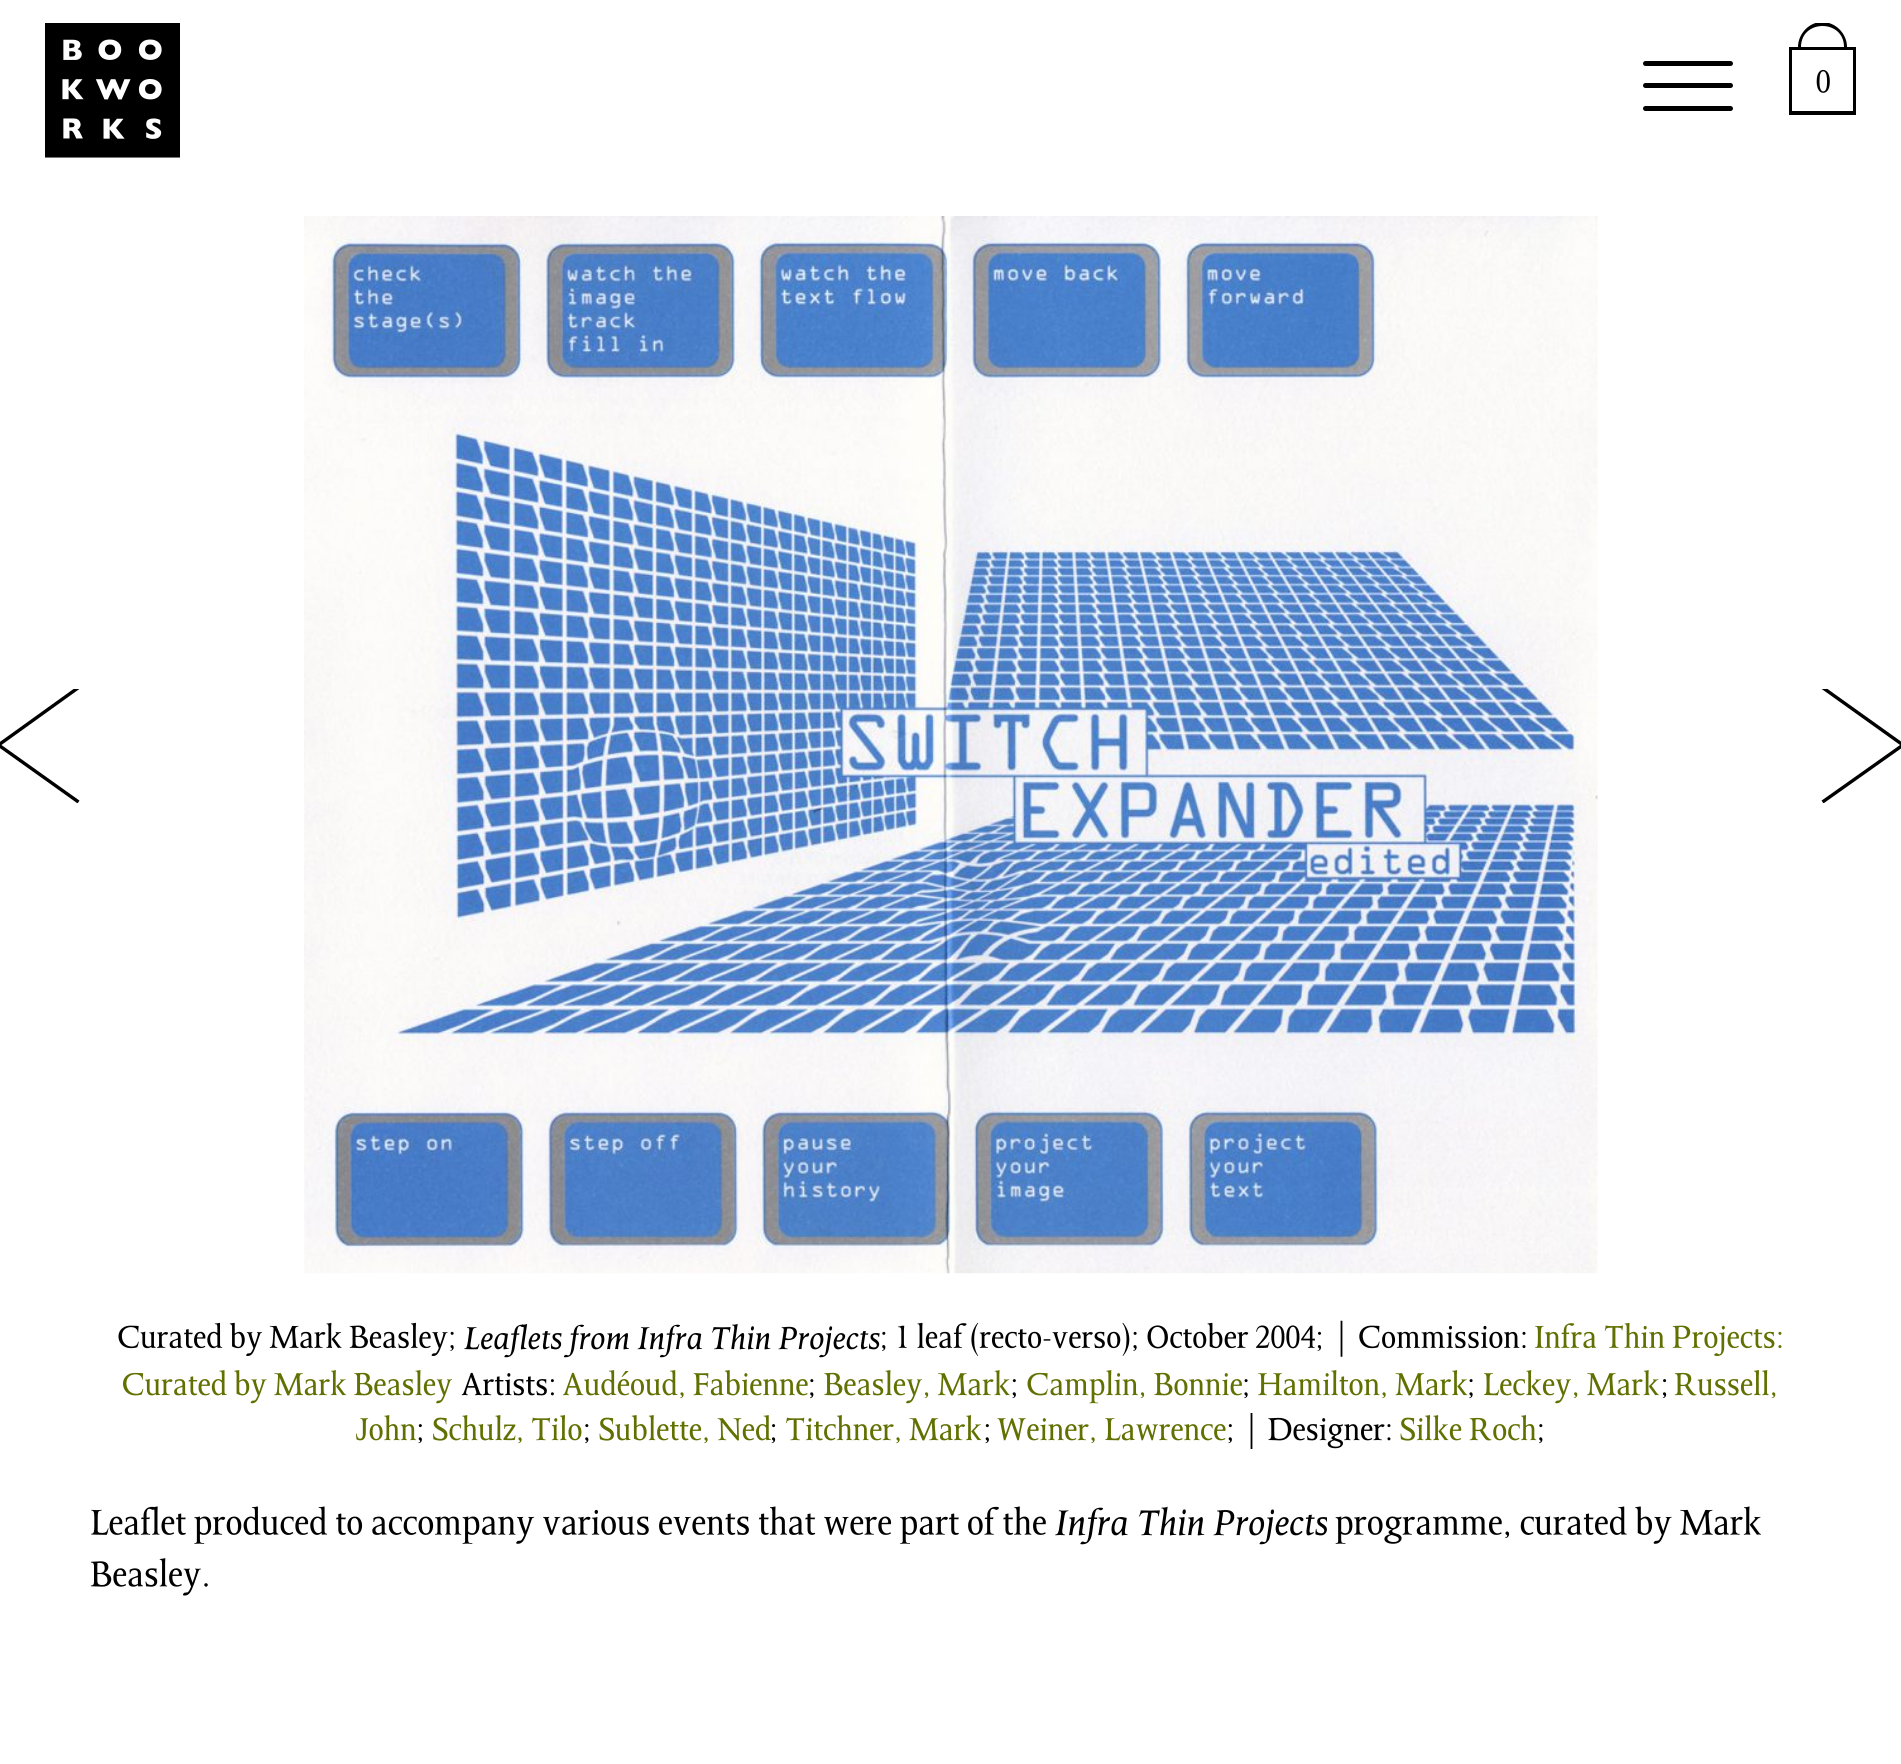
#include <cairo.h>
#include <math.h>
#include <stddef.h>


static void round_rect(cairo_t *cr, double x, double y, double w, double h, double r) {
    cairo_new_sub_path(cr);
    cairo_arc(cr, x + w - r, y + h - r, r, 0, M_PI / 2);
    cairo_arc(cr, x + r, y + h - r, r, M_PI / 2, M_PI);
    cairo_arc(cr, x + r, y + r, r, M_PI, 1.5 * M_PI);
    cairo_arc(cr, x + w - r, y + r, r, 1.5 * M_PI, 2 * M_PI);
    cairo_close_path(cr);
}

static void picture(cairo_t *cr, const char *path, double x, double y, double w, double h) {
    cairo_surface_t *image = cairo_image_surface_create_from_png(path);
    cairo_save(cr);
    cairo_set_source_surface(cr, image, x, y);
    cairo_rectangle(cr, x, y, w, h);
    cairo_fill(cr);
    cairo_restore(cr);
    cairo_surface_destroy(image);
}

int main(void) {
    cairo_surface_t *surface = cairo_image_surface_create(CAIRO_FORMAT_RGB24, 1901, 1764);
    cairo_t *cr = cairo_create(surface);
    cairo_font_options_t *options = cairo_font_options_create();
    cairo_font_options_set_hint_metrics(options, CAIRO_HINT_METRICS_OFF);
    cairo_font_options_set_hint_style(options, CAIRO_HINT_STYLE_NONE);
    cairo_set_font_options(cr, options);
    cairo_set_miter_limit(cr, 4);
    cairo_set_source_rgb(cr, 1, 1, 1);
    cairo_paint(cr);
    picture(cr, "img1.png", 45, 23, 135, 135);
    cairo_set_source_rgb(cr, 0, 0, 0);
    round_rect(cr, 1643, 106, 90, 5, 2.5);
    cairo_fill(cr);
    round_rect(cr, 1643, 61, 90, 5, 2.5);
    cairo_fill(cr);
    round_rect(cr, 1643, 83, 90, 5, 2.5);
    cairo_fill(cr);
    cairo_save(cr);
    cairo_rectangle(cr, 1789, 23, 67, 92);
    cairo_clip(cr);
    cairo_new_path(cr);
    cairo_move_to(cr, 1856, 115);
    cairo_line_to(cr, 1789, 115);
    cairo_line_to(cr, 1789, 47);
    cairo_line_to(cr, 1856, 47);
    cairo_close_path(cr);
    cairo_move_to(cr, 1792, 111);
    cairo_line_to(cr, 1853, 111);
    cairo_line_to(cr, 1853, 50);
    cairo_line_to(cr, 1792, 50);
    cairo_close_path(cr);
    cairo_move_to(cr, 1847, 47);
    cairo_line_to(cr, 1844, 47);
    cairo_curve_to(cr, 1844, 19, 1801, 19, 1801, 47);
    cairo_line_to(cr, 1798, 47);
    cairo_curve_to(cr, 1798, 34, 1809, 22, 1822, 22);
    cairo_curve_to(cr, 1836, 22, 1847, 34, 1847, 47);
    cairo_close_path(cr);
    cairo_fill(cr);
    cairo_restore(cr);
    picture(cr, "img2.png", 1816, 69, 14, 24);
    cairo_save(cr);
    cairo_rectangle(cr, 0, 689, 97, 114);
    cairo_clip(cr);
    cairo_new_path(cr);
    cairo_move_to(cr, 78.5, 687.5);
    cairo_line_to(cr, -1.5, 745);
    cairo_line_to(cr, 78.5, 802);
    cairo_set_line_width(cr, 3.4);
    cairo_stroke(cr);
    cairo_restore(cr);
    picture(cr, "img3.png", 304, 216, 1294, 1058);
    cairo_save(cr);
    cairo_rectangle(cr, 1805, 689, 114, 114);
    cairo_clip(cr);
    cairo_new_path(cr);
    cairo_move_to(cr, 1822.5, 802);
    cairo_line_to(cr, 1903, 745);
    cairo_line_to(cr, 1822.5, 687.5);
    cairo_set_line_width(cr, 3.4);
    cairo_stroke(cr);
    cairo_restore(cr);
    picture(cr, "img4.png", 118, 1322, 336, 34);
    cairo_select_font_face(cr, "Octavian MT", CAIRO_FONT_SLANT_ITALIC, CAIRO_FONT_WEIGHT_NORMAL);
    cairo_set_font_size(cr, 36);
    cairo_move_to(cr, 464, 1349);
    cairo_show_text(cr, "Leaflets from Infra Thin Projects");
    picture(cr, "img5.png", 882, 1322, 440, 34);
    picture(cr, "img6.png", 1340, 1320, 186, 37);
    picture(cr, "img7.png", 1535, 1322, 247, 34);
    picture(cr, "img8.png", 123, 1370, 330, 34);
    picture(cr, "img9.png", 461, 1372, 93, 24);
    picture(cr, "img10.png", 563, 1370, 245, 29);
    picture(cr, "img11.png", 810, 1379, 4, 20);
    picture(cr, "img12.png", 824, 1370, 186, 34);
    picture(cr, "img13.png", 1012, 1379, 4, 20);
    picture(cr, "img14.png", 1027, 1370, 215, 34);
    picture(cr, "img15.png", 1244, 1379, 4, 20);
    picture(cr, "img16.png", 1258, 1370, 210, 29);
    picture(cr, "img15.png", 1469, 1379, 4, 20);
    picture(cr, "img17.png", 1483, 1370, 176, 34);
    picture(cr, "img18.png", 1662, 1379, 5, 20);
    picture(cr, "img19.png", 1674, 1370, 102, 29);
    picture(cr, "img20.png", 356, 1415, 61, 26);
    picture(cr, "img13.png", 418, 1424, 4, 20);
    picture(cr, "img21.png", 433, 1415, 149, 29);
    picture(cr, "img11.png", 585, 1424, 4, 20);
    picture(cr, "img22.png", 599, 1415, 172, 29);
    picture(cr, "img18.png", 771, 1424, 5, 20);
    picture(cr, "img23.png", 786, 1415, 196, 29);
    picture(cr, "img13.png", 985, 1424, 4, 20);
    picture(cr, "img24.png", 997, 1418, 229, 26);
    picture(cr, "img13.png", 1228, 1424, 4, 20);
    picture(cr, "img25.png", 1250, 1413, 141, 36);
    picture(cr, "img26.png", 1400, 1415, 137, 26);
    picture(cr, "img11.png", 1539, 1424, 4, 20);
    picture(cr, "img27.png", 91, 1506, 955, 38);
    cairo_set_font_size(cr, 40.5);
    cairo_move_to(cr, 1055, 1535);
    cairo_show_text(cr, "Infra Thin Projects");
    picture(cr, "img28.png", 1335, 1506, 426, 38);
    picture(cr, "img29.png", 90, 1558, 118, 38);
    cairo_surface_write_to_png(surface, "page.png");
    cairo_font_options_destroy(options);
    cairo_destroy(cr);
    cairo_surface_destroy(surface);
    return 0;
}
